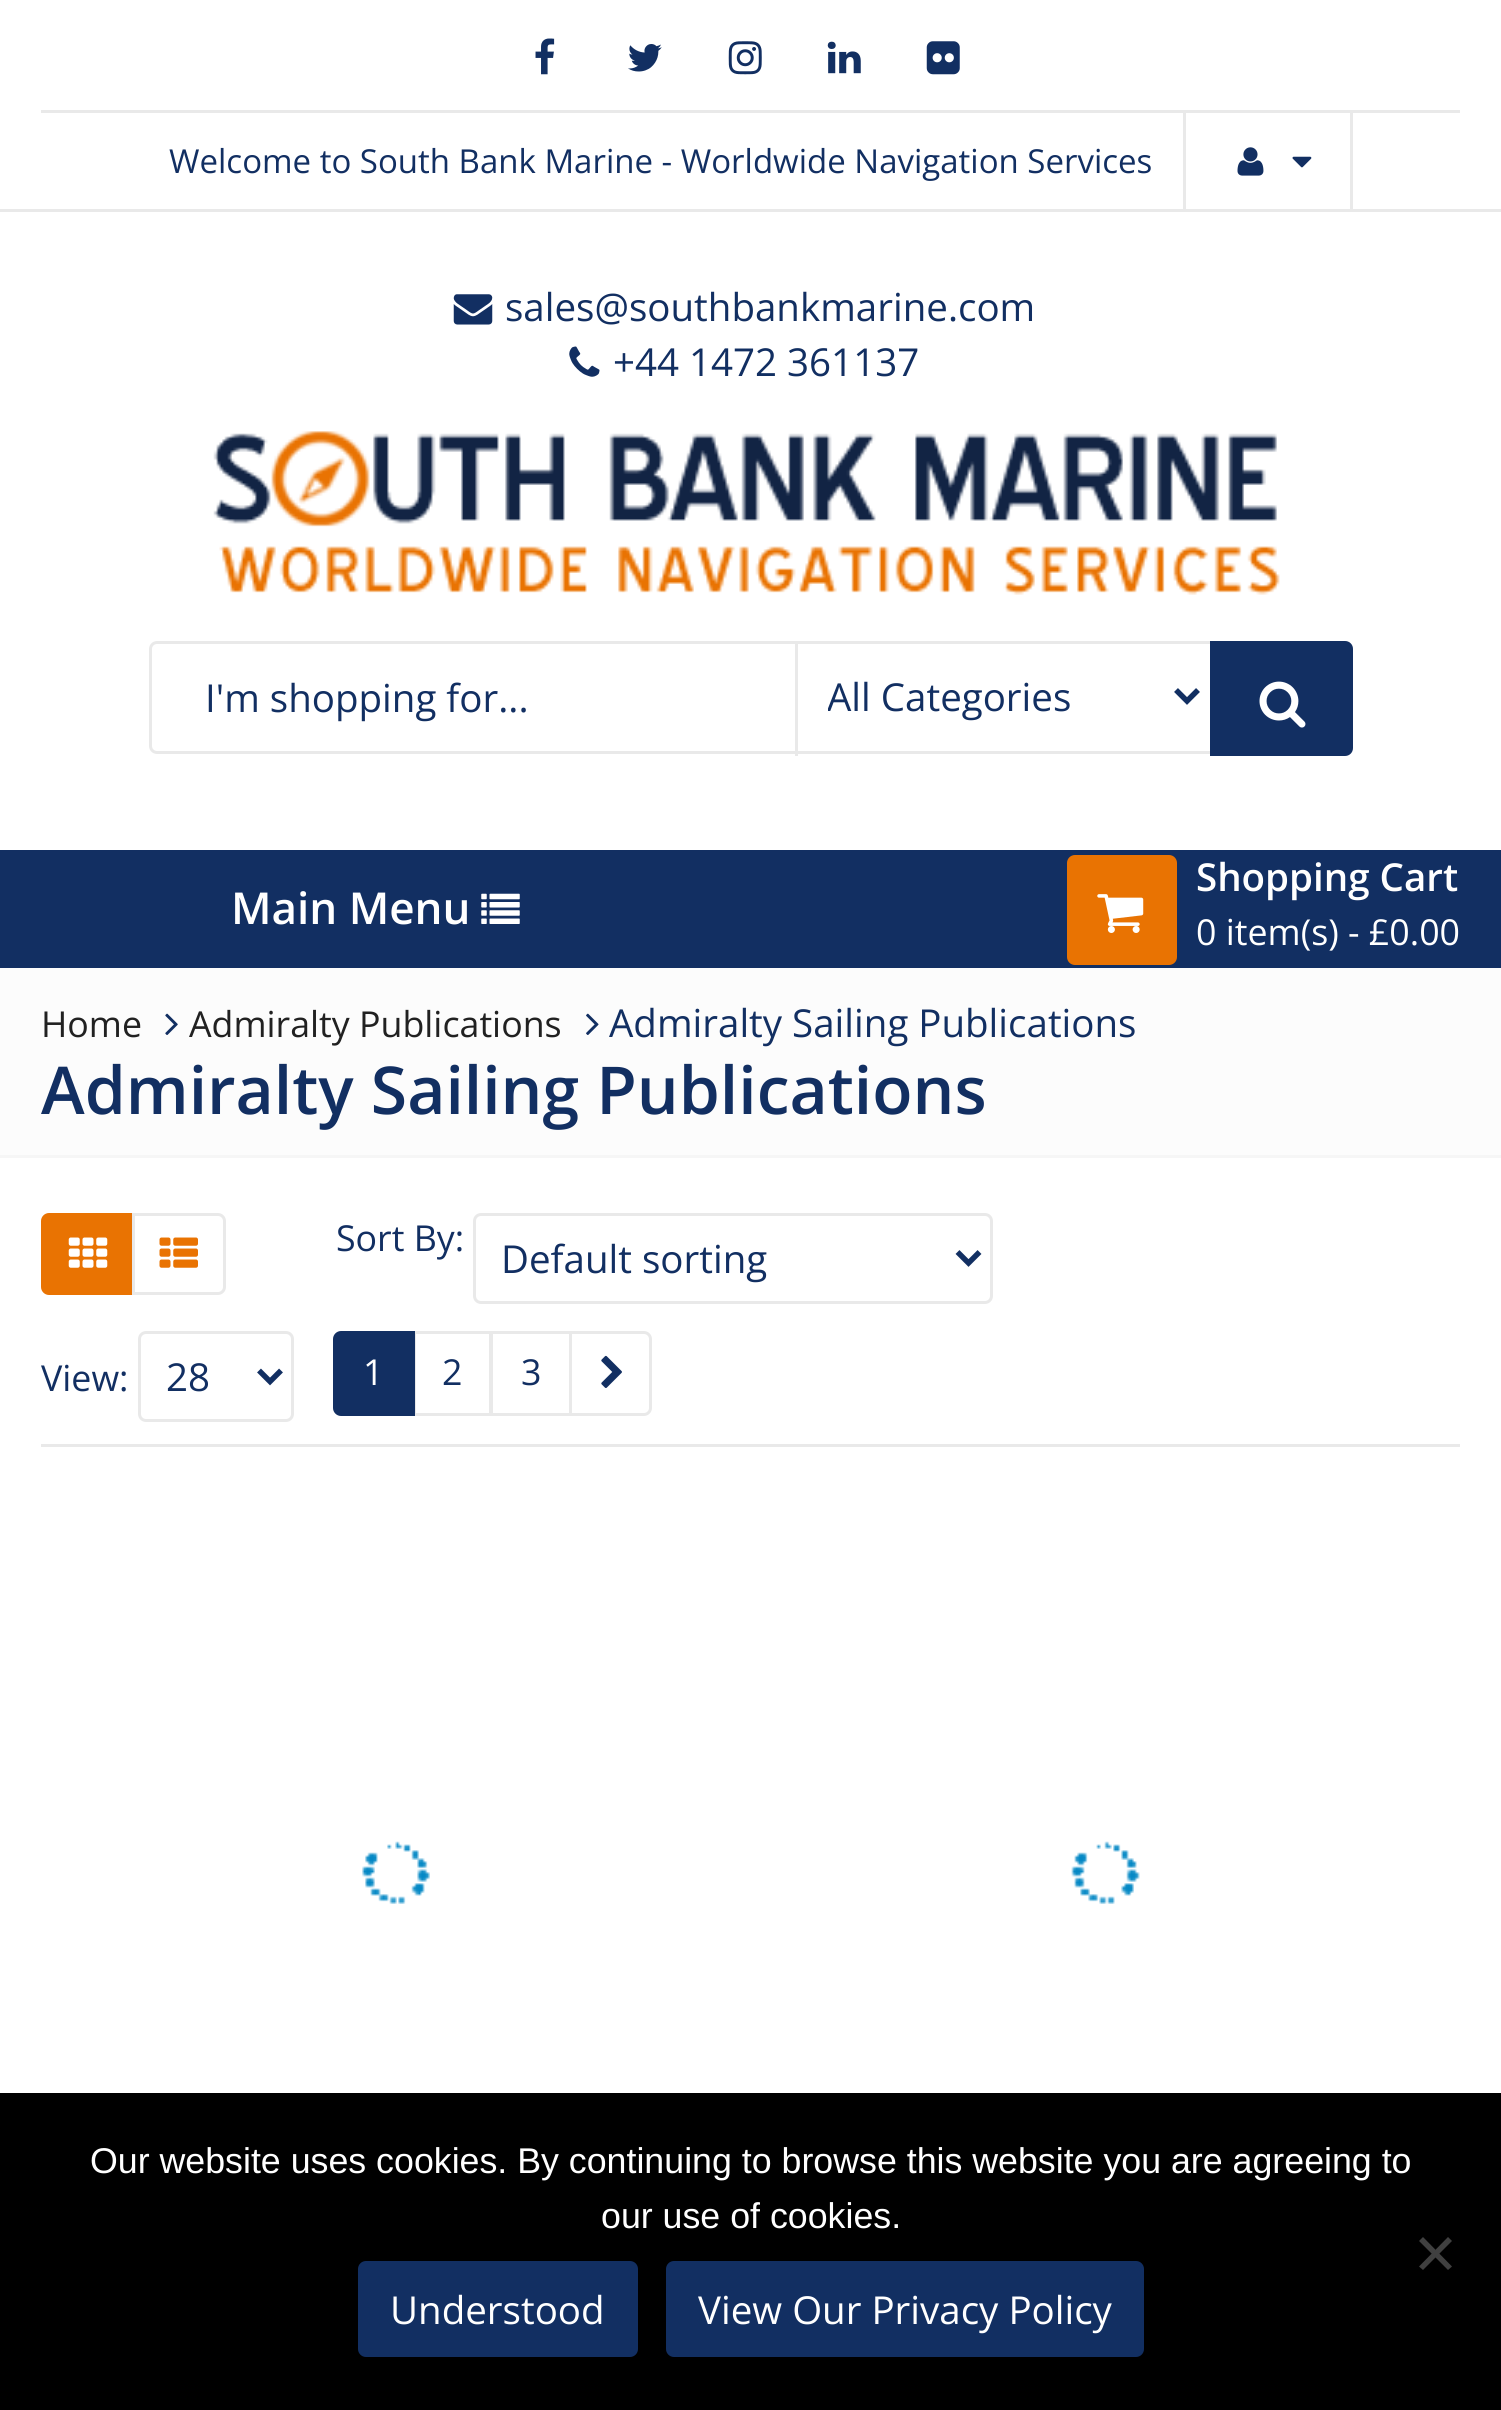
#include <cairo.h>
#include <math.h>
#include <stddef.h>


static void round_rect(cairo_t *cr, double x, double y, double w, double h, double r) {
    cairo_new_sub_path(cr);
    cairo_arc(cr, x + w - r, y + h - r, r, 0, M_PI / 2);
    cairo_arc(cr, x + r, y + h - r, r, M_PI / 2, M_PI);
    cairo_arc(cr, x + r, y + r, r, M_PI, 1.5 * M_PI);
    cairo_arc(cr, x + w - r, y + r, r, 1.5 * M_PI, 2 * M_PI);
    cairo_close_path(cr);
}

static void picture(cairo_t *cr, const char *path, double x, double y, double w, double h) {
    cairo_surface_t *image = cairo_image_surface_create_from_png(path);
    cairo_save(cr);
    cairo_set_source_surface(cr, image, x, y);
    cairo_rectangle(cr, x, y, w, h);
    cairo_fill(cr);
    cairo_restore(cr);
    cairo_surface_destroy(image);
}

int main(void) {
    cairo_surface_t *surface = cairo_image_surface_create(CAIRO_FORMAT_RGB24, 1501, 2410);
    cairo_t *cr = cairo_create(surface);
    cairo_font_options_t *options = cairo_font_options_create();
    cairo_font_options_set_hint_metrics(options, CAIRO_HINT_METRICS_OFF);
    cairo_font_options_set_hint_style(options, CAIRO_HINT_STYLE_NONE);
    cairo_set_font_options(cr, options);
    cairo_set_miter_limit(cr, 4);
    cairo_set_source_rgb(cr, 1, 1, 1);
    cairo_paint(cr);
    cairo_set_source_rgb(cr, 0.914, 0.914, 0.914);
    cairo_rectangle(cr, 0, 209, 1501, 3);
    cairo_fill(cr);
    picture(cr, "img1.png", 535, 38, 20, 37);
    picture(cr, "img2.png", 628, 44, 34, 28);
    picture(cr, "img3.png", 728, 41, 34, 34);
    picture(cr, "img4.png", 827, 41, 34, 33);
    picture(cr, "img5.png", 926, 41, 34, 34);
    cairo_rectangle(cr, 41, 110, 1419, 3);
    cairo_fill(cr);
    cairo_select_font_face(cr, "Open Sans", CAIRO_FONT_SLANT_NORMAL, CAIRO_FONT_WEIGHT_NORMAL);
    cairo_set_font_size(cr, 33);
    cairo_set_source_rgb(cr, 0.071, 0.184, 0.384);
    cairo_move_to(cr, 169, 173);
    cairo_show_text(cr, "Welcome to South Bank Marine - Worldwide Navigation Services");
    cairo_set_source_rgb(cr, 0.914, 0.914, 0.914);
    cairo_rectangle(cr, 1350, 113, 3, 96);
    cairo_fill(cr);
    cairo_rectangle(cr, 1183, 113, 3, 96);
    cairo_fill(cr);
    picture(cr, "img6.png", 1237, 147, 27, 29);
    picture(cr, "img7.png", 1292, 156, 20, 12);
    picture(cr, "img8.png", 453, 294, 40, 31);
    cairo_set_font_size(cr, 38.5);
    cairo_set_source_rgb(cr, 0.071, 0.184, 0.384);
    cairo_move_to(cr, 505, 321);
    cairo_show_text(cr, "sales@southbankmarine.com");
    picture(cr, "img9.png", 569, 346, 31, 31);
    cairo_move_to(cr, 613, 376);
    cairo_show_text(cr, "+44 1472 361137");
    picture(cr, "img10.png", 213, 431, 1067, 164);
    round_rect(cr, 150.5, 642.5, 1201, 110, 6.5);
    cairo_set_source_rgb(cr, 0.914, 0.914, 0.914);
    cairo_set_line_width(cr, 3);
    cairo_stroke(cr);
    cairo_set_source_rgb(cr, 0.071, 0.184, 0.384);
    cairo_move_to(cr, 205, 712);
    cairo_show_text(cr, "I'm shopping for...");
    cairo_set_source_rgb(cr, 0.914, 0.914, 0.914);
    cairo_rectangle(cr, 795, 644, 3, 112);
    cairo_fill(cr);
    cairo_new_path(cr);
    cairo_move_to(cr, 1176, 690);
    cairo_line_to(cr, 1187, 701);
    cairo_line_to(cr, 1198, 690);
    cairo_set_source_rgb(cr, 0.071, 0.184, 0.384);
    cairo_set_line_width(cr, 5.5);
    cairo_stroke(cr);
    cairo_save(cr);
    cairo_rectangle(cr, 828, 666, 319, 57);
    cairo_clip(cr);
    cairo_move_to(cr, 827, 711);
    cairo_show_text(cr, "All Categories");
    cairo_restore(cr);
    cairo_new_path(cr);
    cairo_move_to(cr, 1210, 641);
    cairo_line_to(cr, 1345, 641);
    cairo_curve_to(cr, 1349.5, 641, 1353, 644.5, 1353, 649);
    cairo_line_to(cr, 1353, 748);
    cairo_curve_to(cr, 1353, 752.5, 1349.5, 756, 1345, 756);
    cairo_line_to(cr, 1210, 756);
    cairo_close_path(cr);
    cairo_fill(cr);
    picture(cr, "img11.png", 1259, 681, 47, 47);
    cairo_rectangle(cr, 0, 850, 1501, 118);
    cairo_fill(cr);
    cairo_select_font_face(cr, "Open Sans SemiBold", CAIRO_FONT_SLANT_NORMAL, CAIRO_FONT_WEIGHT_NORMAL);
    cairo_set_font_size(cr, 44);
    cairo_set_source_rgb(cr, 1, 1, 1);
    cairo_move_to(cr, 231, 924);
    cairo_show_text(cr, "Main Menu");
    picture(cr, "img12.png", 481, 893, 39, 31);
    cairo_set_source_rgb(cr, 0.914, 0.451, 0.008);
    round_rect(cr, 1067, 855, 110, 110, 8);
    cairo_fill(cr);
    picture(cr, "img13.png", 1097, 894, 47, 39);
    cairo_set_font_size(cr, 38.5);
    cairo_set_source_rgb(cr, 1, 1, 1);
    cairo_move_to(cr, 1196, 891);
    cairo_show_text(cr, "Shopping Cart");
    cairo_select_font_face(cr, "Open Sans", CAIRO_FONT_SLANT_NORMAL, CAIRO_FONT_WEIGHT_NORMAL);
    cairo_set_font_size(cr, 35.75);
    cairo_move_to(cr, 1196, 945);
    cairo_show_text(cr, "0 item(s) - £0.00");
    cairo_set_source_rgb(cr, 0.988, 0.988, 0.988);
    cairo_rectangle(cr, 0, 968, 1501, 187);
    cairo_fill(cr);
    cairo_set_source_rgb(cr, 0.961, 0.961, 0.961);
    cairo_rectangle(cr, 0, 1155, 1501, 3);
    cairo_fill(cr);
    cairo_set_source_rgb(cr, 0.129, 0.129, 0.129);
    cairo_move_to(cr, 41, 1037);
    cairo_show_text(cr, "Home");
    picture(cr, "img14.png", 165, 1013, 13, 22);
    cairo_move_to(cr, 189, 1037);
    cairo_show_text(cr, "Admiralty Publications");
    picture(cr, "img15.png", 586, 1013, 13, 22);
    cairo_set_font_size(cr, 38.5);
    cairo_set_source_rgb(cr, 0.071, 0.184, 0.384);
    cairo_move_to(cr, 609, 1037);
    cairo_show_text(cr, "Admiralty Sailing Publications");
    cairo_select_font_face(cr, "Open Sans SemiBold", CAIRO_FONT_SLANT_NORMAL, CAIRO_FONT_WEIGHT_NORMAL);
    cairo_set_font_size(cr, 66);
    cairo_move_to(cr, 41, 1114);
    cairo_show_text(cr, "Admiralty Sailing Publications");
    cairo_set_source_rgb(cr, 0.914, 0.914, 0.914);
    cairo_rectangle(cr, 41, 1444, 1419, 3);
    cairo_fill(cr);
    cairo_set_source_rgb(cr, 0.914, 0.451, 0.008);
    cairo_new_path(cr);
    cairo_move_to(cr, 49, 1214.5);
    cairo_line_to(cr, 133.5, 1214.5);
    cairo_line_to(cr, 133.5, 1293.5);
    cairo_line_to(cr, 49, 1293.5);
    cairo_curve_to(cr, 45.5, 1293.5, 42.5, 1290.5, 42.5, 1287);
    cairo_line_to(cr, 42.5, 1221);
    cairo_curve_to(cr, 42.5, 1217.5, 45.5, 1214.5, 49, 1214.5);
    cairo_close_path(cr);
    cairo_fill_preserve(cr);
    cairo_set_line_width(cr, 3);
    cairo_stroke(cr);
    picture(cr, "img16.png", 68, 1237, 40, 31);
    cairo_new_path(cr);
    cairo_move_to(cr, 133.5, 1214.5);
    cairo_line_to(cr, 218, 1214.5);
    cairo_curve_to(cr, 221.5, 1214.5, 224.5, 1217.5, 224.5, 1221);
    cairo_line_to(cr, 224.5, 1287);
    cairo_curve_to(cr, 224.5, 1290.5, 221.5, 1293.5, 218, 1293.5);
    cairo_line_to(cr, 133.5, 1293.5);
    cairo_close_path(cr);
    cairo_set_source_rgb(cr, 0.914, 0.914, 0.914);
    cairo_stroke(cr);
    picture(cr, "img17.png", 159, 1237, 39, 31);
    cairo_select_font_face(cr, "Open Sans", CAIRO_FONT_SLANT_NORMAL, CAIRO_FONT_WEIGHT_NORMAL);
    cairo_set_font_size(cr, 35.75);
    cairo_set_source_rgb(cr, 0.071, 0.184, 0.384);
    cairo_move_to(cr, 336, 1251);
    cairo_show_text(cr, "Sort By:");
    round_rect(cr, 474.5, 1214.5, 517, 88, 6.5);
    cairo_set_source_rgb(cr, 0.914, 0.914, 0.914);
    cairo_stroke(cr);
    cairo_new_path(cr);
    cairo_move_to(cr, 957.5, 1252);
    cairo_line_to(cr, 968.5, 1263);
    cairo_line_to(cr, 979.5, 1252);
    cairo_set_source_rgb(cr, 0.071, 0.184, 0.384);
    cairo_set_line_width(cr, 5.5);
    cairo_stroke(cr);
    cairo_set_font_size(cr, 38.5);
    cairo_move_to(cr, 501, 1273);
    cairo_show_text(cr, "Default sorting");
    cairo_set_font_size(cr, 35.75);
    cairo_move_to(cr, 41, 1391);
    cairo_show_text(cr, "View:");
    round_rect(cr, 139.5, 1332.5, 153, 88, 6.5);
    cairo_set_source_rgb(cr, 0.914, 0.914, 0.914);
    cairo_set_line_width(cr, 3);
    cairo_stroke(cr);
    cairo_new_path(cr);
    cairo_move_to(cr, 259, 1370.5);
    cairo_line_to(cr, 270, 1381.5);
    cairo_line_to(cr, 281, 1370.5);
    cairo_set_source_rgb(cr, 0.071, 0.184, 0.384);
    cairo_set_line_width(cr, 5.5);
    cairo_stroke(cr);
    cairo_set_font_size(cr, 38.5);
    cairo_move_to(cr, 166, 1391);
    cairo_show_text(cr, "28");
    cairo_new_path(cr);
    cairo_move_to(cr, 341, 1332.5);
    cairo_line_to(cr, 413.5, 1332.5);
    cairo_line_to(cr, 413.5, 1414.5);
    cairo_line_to(cr, 341, 1414.5);
    cairo_curve_to(cr, 337.5, 1414.5, 334.5, 1411.5, 334.5, 1408);
    cairo_line_to(cr, 334.5, 1339);
    cairo_curve_to(cr, 334.5, 1335.5, 337.5, 1332.5, 341, 1332.5);
    cairo_close_path(cr);
    cairo_fill_preserve(cr);
    cairo_set_line_width(cr, 3);
    cairo_stroke(cr);
    cairo_set_font_size(cr, 35.75);
    cairo_set_source_rgb(cr, 1, 1, 1);
    cairo_move_to(cr, 363, 1385);
    cairo_show_text(cr, "1");
    cairo_save(cr);
    cairo_rectangle(cr, 415, 1331, 77, 85);
    cairo_clip(cr);
    cairo_rectangle(cr, 414.5, 1332.5, 76, 82);
    cairo_set_source_rgb(cr, 0.914, 0.914, 0.914);
    cairo_stroke(cr);
    cairo_restore(cr);
    cairo_set_source_rgb(cr, 0.071, 0.184, 0.384);
    cairo_move_to(cr, 442, 1385);
    cairo_show_text(cr, "2");
    cairo_save(cr);
    cairo_rectangle(cr, 492, 1331, 80, 85);
    cairo_clip(cr);
    cairo_rectangle(cr, 491.5, 1332.5, 79, 82);
    cairo_set_source_rgb(cr, 0.914, 0.914, 0.914);
    cairo_stroke(cr);
    cairo_restore(cr);
    cairo_move_to(cr, 521, 1385);
    cairo_show_text(cr, "3");
    cairo_save(cr);
    cairo_rectangle(cr, 572, 1331, 80, 85);
    cairo_clip(cr);
    cairo_new_path(cr);
    cairo_move_to(cr, 570.5, 1332.5);
    cairo_line_to(cr, 644, 1332.5);
    cairo_curve_to(cr, 647.5, 1332.5, 650.5, 1335.5, 650.5, 1339);
    cairo_line_to(cr, 650.5, 1408);
    cairo_curve_to(cr, 650.5, 1411.5, 647.5, 1414.5, 644, 1414.5);
    cairo_line_to(cr, 570.5, 1414.5);
    cairo_close_path(cr);
    cairo_set_source_rgb(cr, 0.914, 0.914, 0.914);
    cairo_stroke(cr);
    cairo_restore(cr);
    picture(cr, "img18.png", 601, 1355, 21, 33);
    picture(cr, "img19.png", 362, 1841, 68, 63);
    picture(cr, "img20.png", 1071, 1841, 69, 63);
    cairo_set_source_rgb(cr, 0, 0, 0);
    cairo_rectangle(cr, 0, 2093, 1501, 317);
    cairo_fill(cr);
    cairo_select_font_face(cr, "Liberation Sans", CAIRO_FONT_SLANT_NORMAL, CAIRO_FONT_WEIGHT_NORMAL);
    cairo_set_source_rgb(cr, 1, 1, 1);
    cairo_move_to(cr, 90, 2173);
    cairo_show_text(cr, "Our website uses cookies. By continuing to browse this website you are agreeing to");
    cairo_move_to(cr, 601, 2228);
    cairo_show_text(cr, "our use of cookies.");
    cairo_set_source_rgb(cr, 0.251, 0.251, 0.251);
    cairo_new_path(cr);
    cairo_move_to(cr, 1448, 2237);
    cairo_line_to(cr, 1452, 2241);
    cairo_line_to(cr, 1423, 2270);
    cairo_line_to(cr, 1419, 2266.5);
    cairo_close_path(cr);
    cairo_fill(cr);
    cairo_new_path(cr);
    cairo_move_to(cr, 1419, 2241);
    cairo_line_to(cr, 1423, 2237);
    cairo_line_to(cr, 1452, 2266.5);
    cairo_line_to(cr, 1448, 2270);
    cairo_close_path(cr);
    cairo_fill(cr);
    cairo_set_source_rgb(cr, 0.071, 0.184, 0.384);
    round_rect(cr, 358, 2261, 280, 96, 8);
    cairo_fill(cr);
    cairo_select_font_face(cr, "Open Sans", CAIRO_FONT_SLANT_NORMAL, CAIRO_FONT_WEIGHT_NORMAL);
    cairo_set_font_size(cr, 38.5);
    cairo_set_source_rgb(cr, 1, 1, 1);
    cairo_move_to(cr, 390, 2324);
    cairo_show_text(cr, "Understood");
    cairo_set_source_rgb(cr, 0.071, 0.184, 0.384);
    round_rect(cr, 666, 2261, 478, 96, 8);
    cairo_fill(cr);
    cairo_set_source_rgb(cr, 1, 1, 1);
    cairo_move_to(cr, 698, 2324);
    cairo_show_text(cr, "View Our Privacy Policy");
    cairo_surface_write_to_png(surface, "page.png");
    cairo_font_options_destroy(options);
    cairo_destroy(cr);
    cairo_surface_destroy(surface);
    return 0;
}
